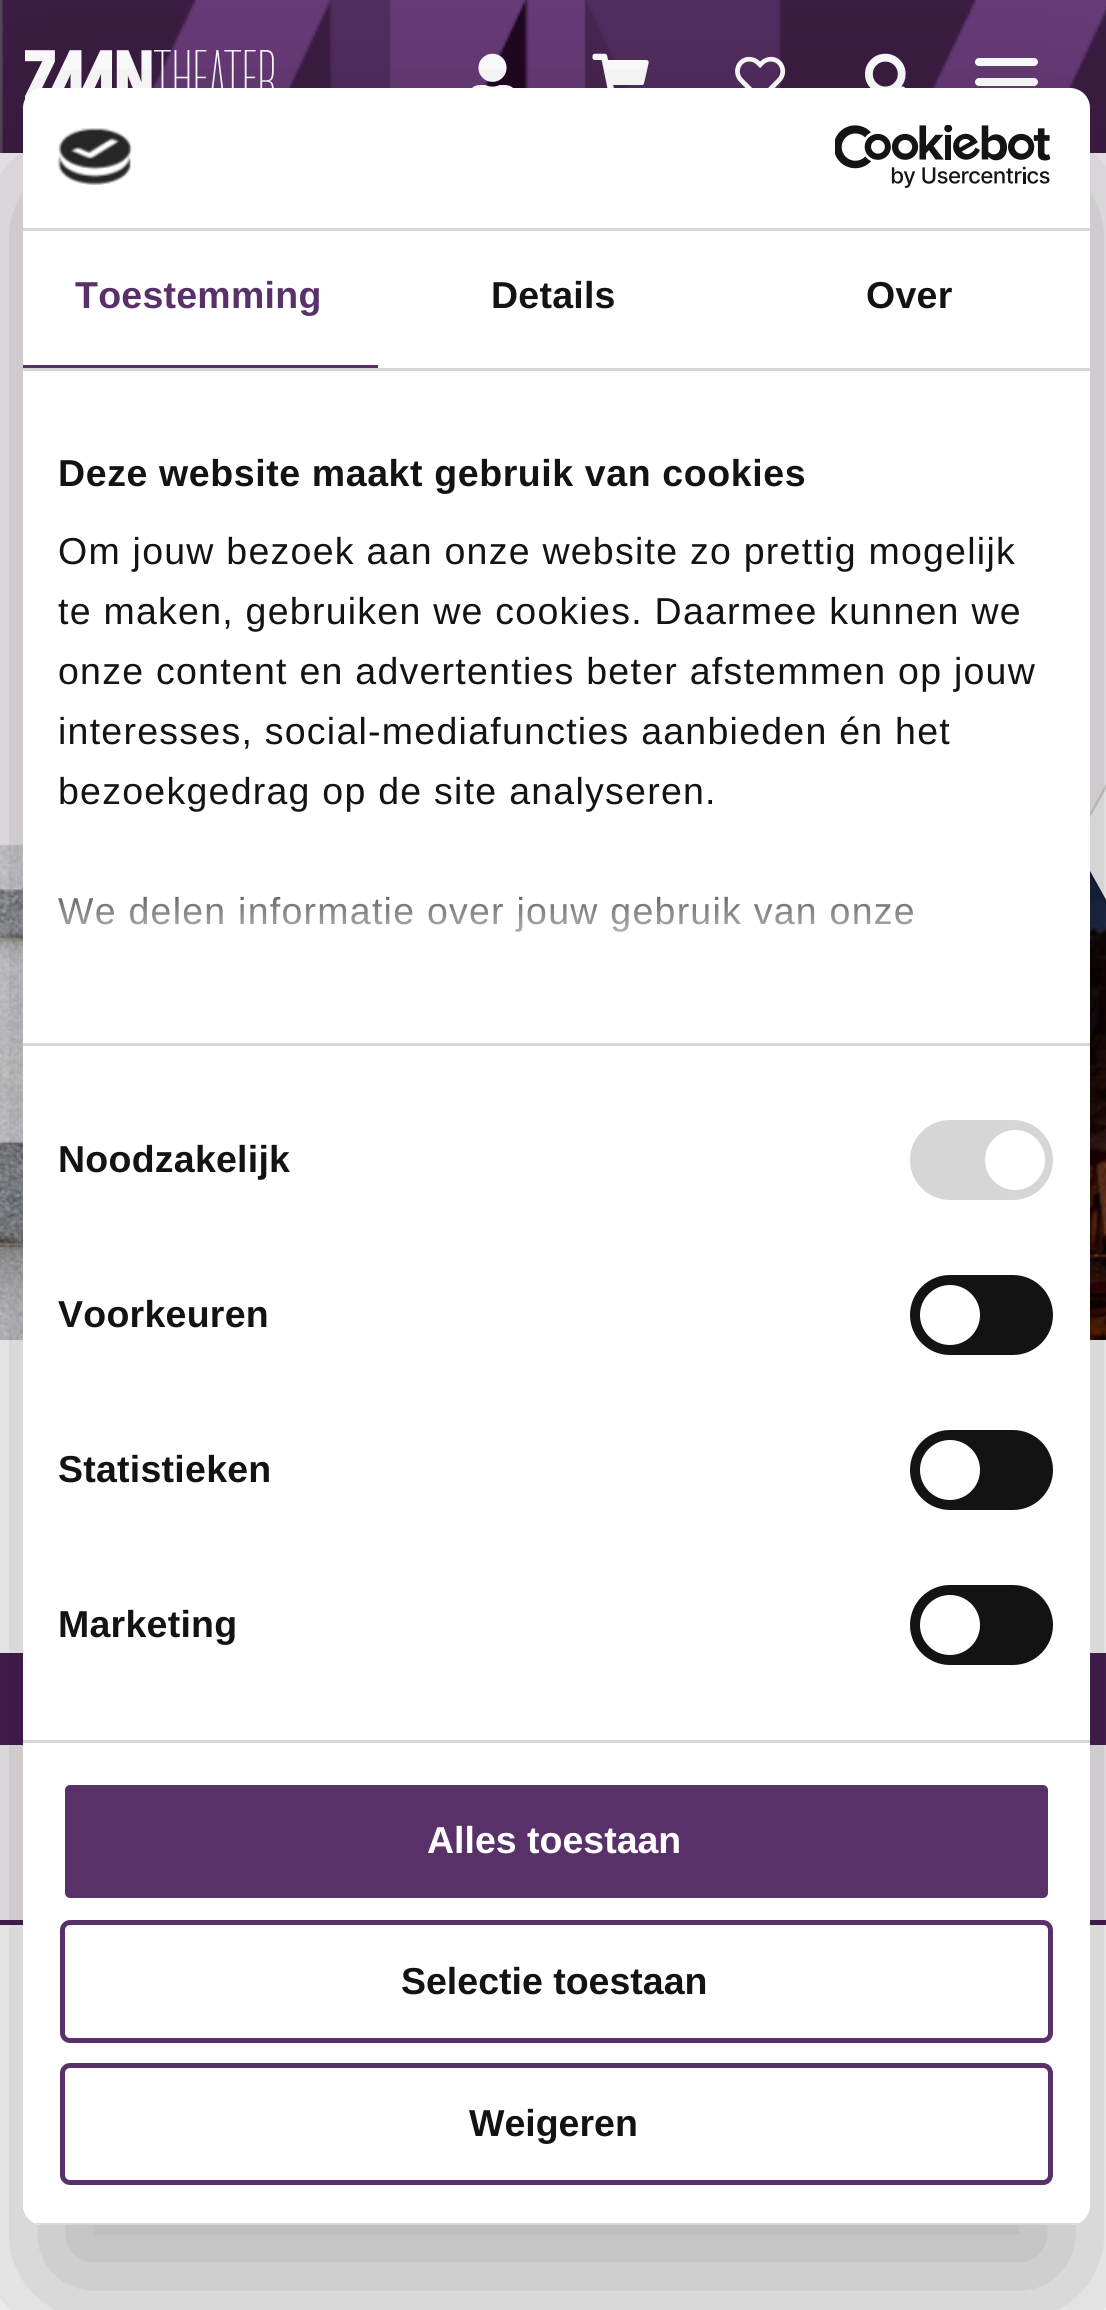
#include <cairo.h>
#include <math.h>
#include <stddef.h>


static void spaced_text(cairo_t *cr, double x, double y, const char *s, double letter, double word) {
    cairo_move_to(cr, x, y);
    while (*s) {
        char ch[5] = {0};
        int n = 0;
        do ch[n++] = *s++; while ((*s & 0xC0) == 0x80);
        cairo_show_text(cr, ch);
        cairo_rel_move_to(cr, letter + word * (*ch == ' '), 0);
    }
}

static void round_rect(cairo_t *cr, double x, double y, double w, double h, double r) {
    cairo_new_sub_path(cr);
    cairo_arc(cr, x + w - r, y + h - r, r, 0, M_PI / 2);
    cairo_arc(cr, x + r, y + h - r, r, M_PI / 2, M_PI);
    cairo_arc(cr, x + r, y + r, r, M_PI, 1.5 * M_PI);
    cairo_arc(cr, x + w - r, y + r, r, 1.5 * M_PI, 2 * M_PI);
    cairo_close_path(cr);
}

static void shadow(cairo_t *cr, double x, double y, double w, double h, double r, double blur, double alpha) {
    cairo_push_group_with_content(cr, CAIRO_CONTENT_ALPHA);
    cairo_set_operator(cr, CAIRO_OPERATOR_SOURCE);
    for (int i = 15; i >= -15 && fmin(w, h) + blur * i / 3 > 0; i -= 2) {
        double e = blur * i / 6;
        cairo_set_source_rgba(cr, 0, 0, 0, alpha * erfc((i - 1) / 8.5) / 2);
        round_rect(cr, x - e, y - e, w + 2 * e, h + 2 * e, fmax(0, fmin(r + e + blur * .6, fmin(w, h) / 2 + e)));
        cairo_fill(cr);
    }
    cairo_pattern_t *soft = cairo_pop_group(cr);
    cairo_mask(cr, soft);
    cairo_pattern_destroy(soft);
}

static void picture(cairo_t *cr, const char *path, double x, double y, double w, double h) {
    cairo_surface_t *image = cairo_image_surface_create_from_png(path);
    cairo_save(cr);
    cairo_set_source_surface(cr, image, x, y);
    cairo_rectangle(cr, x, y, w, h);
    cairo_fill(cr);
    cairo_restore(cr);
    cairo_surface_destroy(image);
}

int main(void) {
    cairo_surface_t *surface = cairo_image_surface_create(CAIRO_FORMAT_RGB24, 1106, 2310);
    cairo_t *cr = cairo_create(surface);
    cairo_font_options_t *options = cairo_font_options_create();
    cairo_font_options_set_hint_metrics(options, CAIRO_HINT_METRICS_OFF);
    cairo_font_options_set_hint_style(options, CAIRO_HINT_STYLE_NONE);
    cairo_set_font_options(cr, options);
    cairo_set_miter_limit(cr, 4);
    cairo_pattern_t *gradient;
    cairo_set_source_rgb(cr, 0.957, 0.937, 0.953);
    cairo_paint(cr);
    picture(cr, "img1.png", 0, 0, 1106, 153);
    picture(cr, "img2.png", 25, 50, 249, 50);
    picture(cr, "img3.png", 472, 53, 41, 35);
    picture(cr, "img4.png", 592, 53, 57, 35);
    picture(cr, "img5.png", 735, 56, 51, 32);
    picture(cr, "img6.png", 865, 53, 41, 35);
    cairo_set_source_rgb(cr, 1, 1, 1);
    round_rect(cr, 975, 78, 63, 8, 4);
    cairo_fill(cr);
    round_rect(cr, 975, 58, 63, 8, 4);
    cairo_fill(cr);
    picture(cr, "img7.png", 0, 845, 23, 495);
    cairo_rectangle(cr, 0, 1340, 23, 313);
    cairo_fill(cr);
    cairo_set_source_rgb(cr, 0.286, 0.122, 0.325);
    cairo_rectangle(cr, 0, 1653, 23, 92);
    cairo_fill(cr);
    picture(cr, "img8.png", 1090, 871, 16, 469);
    cairo_set_source_rgba(cr, 0, 0, 0, 0.12);
    cairo_new_path(cr);
    cairo_move_to(cr, 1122, 754);
    cairo_line_to(cr, 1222, 754);
    cairo_line_to(cr, 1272, 844);
    cairo_line_to(cr, 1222, 934);
    cairo_line_to(cr, 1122, 934);
    cairo_line_to(cr, 1073, 845);
    cairo_line_to(cr, 1073, 844);
    cairo_close_path(cr);
    cairo_fill(cr);
    cairo_set_source_rgb(cr, 0.98, 0.98, 0.984);
    cairo_new_path(cr);
    cairo_move_to(cr, 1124, 757);
    cairo_line_to(cr, 1075, 844);
    cairo_line_to(cr, 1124, 932);
    cairo_line_to(cr, 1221, 932);
    cairo_line_to(cr, 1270, 844);
    cairo_line_to(cr, 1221, 757);
    cairo_close_path(cr);
    cairo_fill(cr);
    cairo_set_source_rgb(cr, 1, 1, 1);
    cairo_rectangle(cr, 1090, 1340, 16, 313);
    cairo_fill(cr);
    cairo_set_source_rgb(cr, 0.286, 0.122, 0.325);
    cairo_rectangle(cr, 1090, 1653, 16, 92);
    cairo_fill(cr);
    cairo_set_source_rgb(cr, 1, 1, 1);
    cairo_rectangle(cr, 0, 1925, 1106, 385);
    cairo_fill(cr);
    cairo_set_source_rgb(cr, 0.286, 0.122, 0.325);
    cairo_rectangle(cr, 0, 1920, 1106, 5);
    cairo_fill(cr);
    cairo_save(cr);
    cairo_set_fill_rule(cr, CAIRO_FILL_RULE_EVEN_ODD);
    cairo_new_path(cr);
    cairo_move_to(cr, 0, 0);
    cairo_line_to(cr, 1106, 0);
    cairo_line_to(cr, 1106, 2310);
    cairo_line_to(cr, 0, 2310);
    cairo_close_path(cr);
    cairo_move_to(cr, 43, 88);
    cairo_line_to(cr, 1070, 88);
    cairo_curve_to(cr, 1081, 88, 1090, 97, 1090, 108);
    cairo_line_to(cr, 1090, 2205);
    cairo_curve_to(cr, 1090, 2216, 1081, 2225, 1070, 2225);
    cairo_line_to(cr, 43, 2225);
    cairo_curve_to(cr, 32, 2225, 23, 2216, 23, 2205);
    cairo_line_to(cr, 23, 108);
    cairo_curve_to(cr, 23, 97, 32, 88, 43, 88);
    cairo_close_path(cr);
    cairo_clip(cr);
    cairo_set_source_rgb(cr, 0, 0, 0);
    shadow(cr, 23, 168, 1067, 2137, 20, 85, 0.3);
    cairo_restore(cr);
    cairo_set_source_rgb(cr, 1, 1, 1);
    round_rect(cr, 23, 88, 1067, 2137, 20);
    cairo_fill(cr);
    cairo_set_source_rgb(cr, 0.839, 0.839, 0.839);
    cairo_rectangle(cr, 23, 228, 1067, 3);
    cairo_fill(cr);
    picture(cr, "img9.png", 57, 128, 75, 57);
    picture(cr, "img10.png", 835, 125, 216, 63);
    cairo_rectangle(cr, 23, 368, 1067, 3);
    cairo_fill(cr);
    cairo_set_source_rgb(cr, 0.349, 0.192, 0.412);
    cairo_rectangle(cr, 23, 365, 355, 3);
    cairo_fill(cr);
    cairo_select_font_face(cr, "Liberation Sans", CAIRO_FONT_SLANT_NORMAL, CAIRO_FONT_WEIGHT_BOLD);
    cairo_set_font_size(cr, 37.5);
    spaced_text(cr, 75, 308, "Toestemming", 0.25, 0);
    cairo_set_source_rgb(cr, 0.078, 0.078, 0.078);
    spaced_text(cr, 491, 308, "Details", 0.25, 0);
    spaced_text(cr, 866, 308, "Over", 0.25, 0);
    cairo_set_source_rgb(cr, 0.839, 0.839, 0.839);
    cairo_rectangle(cr, 23, 1043, 1067, 3);
    cairo_fill(cr);
    cairo_set_source_rgb(cr, 0.078, 0.078, 0.078);
    spaced_text(cr, 58, 486, "Deze website maakt gebruik van cookies", 0.6, 0);
    cairo_select_font_face(cr, "Liberation Sans", CAIRO_FONT_SLANT_NORMAL, CAIRO_FONT_WEIGHT_NORMAL);
    spaced_text(cr, 58, 564, "Om jouw bezoek aan onze website zo prettig mogelijk", 1.25, 0);
    spaced_text(cr, 58, 624, "te maken, gebruiken we cookies. Daarmee kunnen we", 1.25, 0);
    spaced_text(cr, 58, 684, "onze content en advertenties beter afstemmen op jouw", 1.25, 0);
    spaced_text(cr, 58, 744, "interesses, social-mediafuncties aanbieden én het", 1.25, 0);
    spaced_text(cr, 58, 804, "bezoekgedrag op de site analyseren.", 1.25, 0);
    spaced_text(cr, 58, 924, "We delen informatie over jouw gebruik van onze", 1.25, 0);
    gradient = cairo_pattern_create_linear(539, 1042, 539, 854);
    cairo_pattern_add_color_stop_rgba(gradient, 0, 1, 1, 1, 1);
    cairo_pattern_add_color_stop_rgba(gradient, 0.5, 1, 1, 1, 0.8);
    cairo_pattern_add_color_stop_rgba(gradient, 1, 1, 1, 1, 0);
    cairo_set_source(cr, gradient);
    cairo_pattern_destroy(gradient);
    cairo_rectangle(cr, 57, 896, 856, 36);
    cairo_fill(cr);
    cairo_set_source_rgb(cr, 0.839, 0.839, 0.839);
    cairo_rectangle(cr, 23, 1740, 1067, 3);
    cairo_fill(cr);
    cairo_select_font_face(cr, "Liberation Sans", CAIRO_FONT_SLANT_NORMAL, CAIRO_FONT_WEIGHT_BOLD);
    cairo_set_source_rgb(cr, 0.078, 0.078, 0.078);
    spaced_text(cr, 58, 1172, "Noodzakelijk", 0.25, 0);
    cairo_set_source_rgb(cr, 0.839, 0.839, 0.839);
    round_rect(cr, 910, 1120, 143, 80, 40);
    cairo_fill(cr);
    cairo_set_source_rgb(cr, 1, 1, 1);
    cairo_arc(cr, 1015, 1160, 30, 0, 2 * M_PI);
    cairo_fill(cr);
    cairo_set_source_rgb(cr, 0.078, 0.078, 0.078);
    spaced_text(cr, 58, 1327, "Voorkeuren", 0.25, 0);
    round_rect(cr, 910, 1275, 143, 80, 40);
    cairo_fill(cr);
    cairo_set_source_rgb(cr, 1, 1, 1);
    cairo_arc(cr, 950, 1315, 30, 0, 2 * M_PI);
    cairo_fill(cr);
    cairo_set_source_rgb(cr, 0.078, 0.078, 0.078);
    spaced_text(cr, 58, 1482, "Statistieken", 0.25, 0);
    round_rect(cr, 910, 1430, 143, 80, 40);
    cairo_fill(cr);
    cairo_set_source_rgb(cr, 1, 1, 1);
    cairo_arc(cr, 950, 1470, 30, 0, 2 * M_PI);
    cairo_fill(cr);
    cairo_set_source_rgb(cr, 0.078, 0.078, 0.078);
    spaced_text(cr, 58, 1637, "Marketing", 0.25, 0);
    round_rect(cr, 910, 1585, 143, 80, 40);
    cairo_fill(cr);
    cairo_set_source_rgb(cr, 1, 1, 1);
    cairo_arc(cr, 950, 1625, 30, 0, 2 * M_PI);
    cairo_fill(cr);
    cairo_save(cr);
    round_rect(cr, 23, 88, 1067, 2137, 20);
    cairo_clip(cr);
    cairo_set_source_rgb(cr, 0.839, 0.839, 0.839);
    cairo_rectangle(cr, 34, 2223, 1045, 2);
    cairo_fill(cr);
    cairo_restore(cr);
    cairo_set_source_rgb(cr, 0.349, 0.192, 0.412);
    round_rect(cr, 62.5, 1782.5, 988, 118, 7.5);
    cairo_fill_preserve(cr);
    cairo_set_source_rgb(cr, 1, 1, 1);
    cairo_set_line_width(cr, 5);
    cairo_stroke(cr);
    cairo_move_to(cr, 427, 1853);
    cairo_show_text(cr, "Alles toestaan");
    round_rect(cr, 62.5, 1922.5, 988, 118, 7.5);
    cairo_set_source_rgb(cr, 0.349, 0.192, 0.412);
    cairo_stroke(cr);
    cairo_set_source_rgb(cr, 0.078, 0.078, 0.078);
    cairo_move_to(cr, 401, 1994);
    cairo_show_text(cr, "Selectie toestaan");
    round_rect(cr, 62.5, 2065.5, 988, 117, 7.5);
    cairo_set_source_rgb(cr, 0.349, 0.192, 0.412);
    cairo_stroke(cr);
    cairo_set_source_rgb(cr, 0.078, 0.078, 0.078);
    cairo_move_to(cr, 469, 2136);
    cairo_show_text(cr, "Weigeren");
    cairo_surface_write_to_png(surface, "page.png");
    cairo_font_options_destroy(options);
    cairo_destroy(cr);
    cairo_surface_destroy(surface);
    return 0;
}
